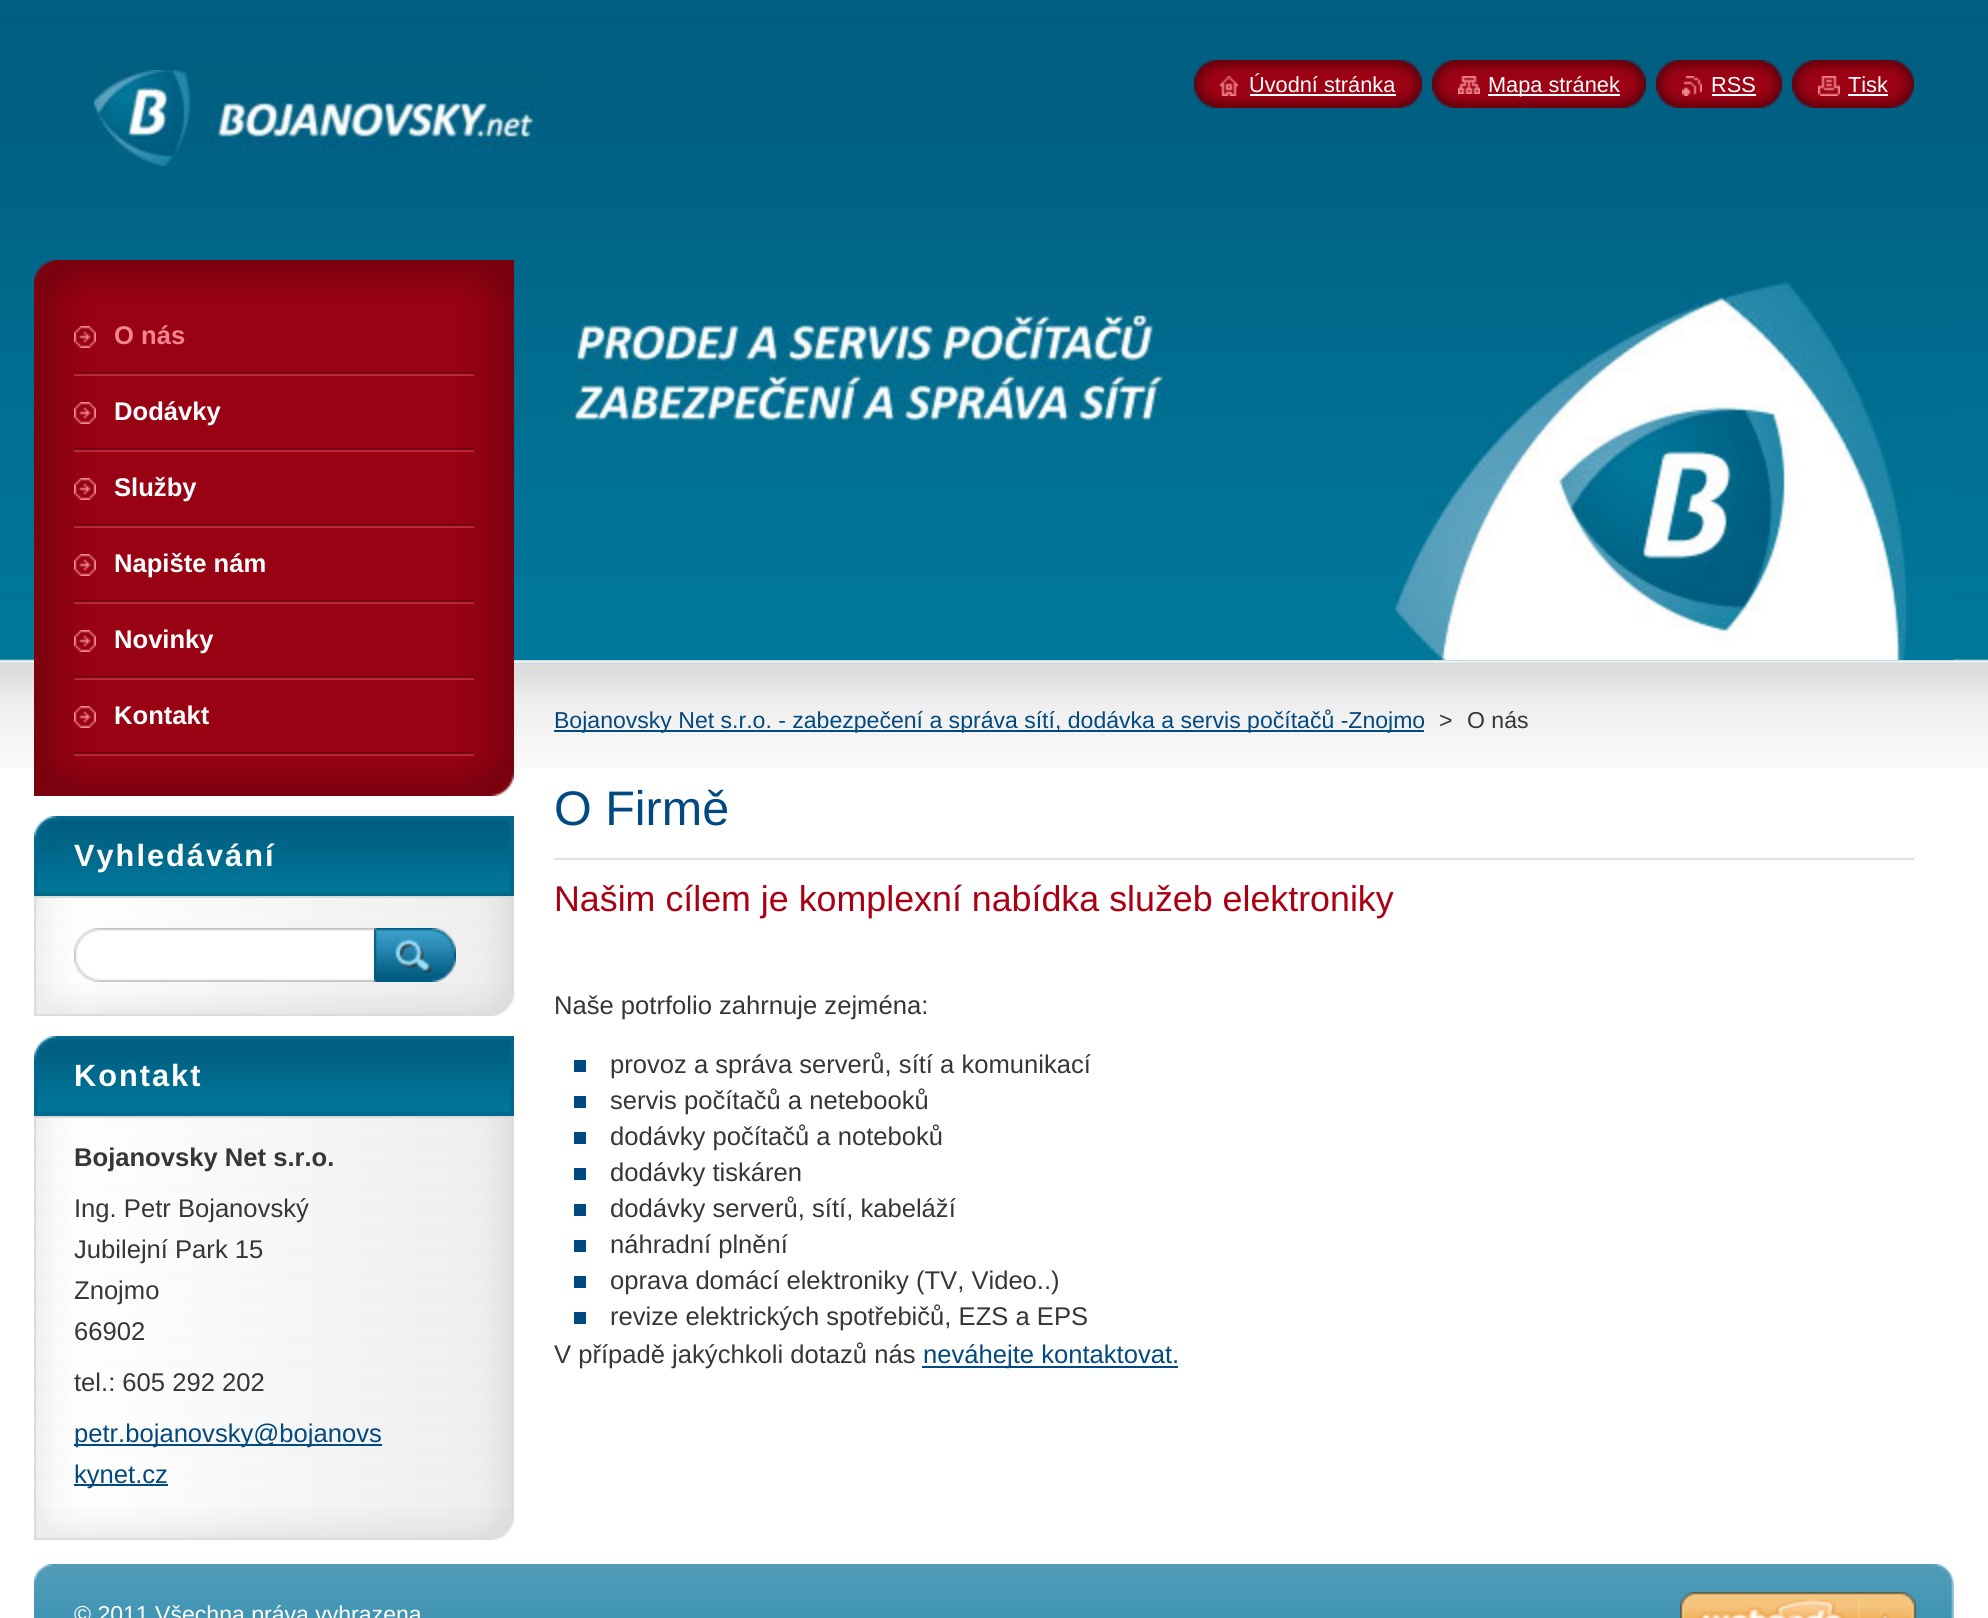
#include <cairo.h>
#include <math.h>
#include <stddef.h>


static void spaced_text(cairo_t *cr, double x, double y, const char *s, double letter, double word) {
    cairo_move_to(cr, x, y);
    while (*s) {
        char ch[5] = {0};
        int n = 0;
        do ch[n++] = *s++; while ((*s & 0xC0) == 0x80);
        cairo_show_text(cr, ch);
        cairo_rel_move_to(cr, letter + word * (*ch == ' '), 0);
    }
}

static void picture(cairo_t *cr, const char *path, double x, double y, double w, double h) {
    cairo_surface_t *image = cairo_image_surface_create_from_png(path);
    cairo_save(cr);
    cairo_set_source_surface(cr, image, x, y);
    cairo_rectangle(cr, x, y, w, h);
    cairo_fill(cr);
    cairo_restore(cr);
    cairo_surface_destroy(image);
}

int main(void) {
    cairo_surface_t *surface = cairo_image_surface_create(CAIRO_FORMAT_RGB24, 1988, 1618);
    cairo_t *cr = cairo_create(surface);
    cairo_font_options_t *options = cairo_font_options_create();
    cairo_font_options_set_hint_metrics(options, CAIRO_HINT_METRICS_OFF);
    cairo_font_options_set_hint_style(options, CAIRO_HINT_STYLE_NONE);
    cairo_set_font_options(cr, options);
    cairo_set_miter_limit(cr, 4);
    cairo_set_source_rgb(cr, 1, 1, 1);
    cairo_paint(cr);
    picture(cr, "img1.png", 0, 0, 1988, 768);
    picture(cr, "img2.png", 94, 70, 448, 96);
    picture(cr, "img3.png", 1194, 60, 26, 48);
    picture(cr, "img4.png", 1220, 60, 202, 48);
    picture(cr, "img5.png", 1220, 76, 18, 20);
    cairo_select_font_face(cr, "Liberation Sans", CAIRO_FONT_SLANT_NORMAL, CAIRO_FONT_WEIGHT_NORMAL);
    cairo_set_font_size(cr, 21.75);
    cairo_set_source_rgb(cr, 1, 1, 1);
    cairo_move_to(cr, 1249, 92);
    cairo_show_text(cr, "Úvodní stránka");
    cairo_rectangle(cr, 1250, 94, 146, 2);
    cairo_fill(cr);
    picture(cr, "img3.png", 1432, 60, 26, 48);
    picture(cr, "img6.png", 1458, 60, 188, 48);
    picture(cr, "img7.png", 1458, 76, 22, 18);
    cairo_rectangle(cr, 1488, 94, 132, 2);
    cairo_fill(cr);
    cairo_move_to(cr, 1488, 92);
    cairo_show_text(cr, "Mapa stránek");
    picture(cr, "img3.png", 1656, 60, 26, 48);
    picture(cr, "img8.png", 1682, 60, 100, 48);
    picture(cr, "img9.png", 1682, 76, 20, 20);
    cairo_move_to(cr, 1711, 92);
    cairo_show_text(cr, "RSS");
    cairo_rectangle(cr, 1712, 94, 44, 2);
    cairo_fill(cr);
    picture(cr, "img3.png", 1792, 60, 26, 48);
    picture(cr, "img10.png", 1818, 60, 96, 48);
    picture(cr, "img11.png", 1818, 76, 22, 20);
    cairo_move_to(cr, 1848, 92);
    cairo_show_text(cr, "Tisk");
    cairo_rectangle(cr, 1848, 94, 40, 2);
    cairo_fill(cr);
    picture(cr, "img12.png", 34, 260, 480, 40);
    picture(cr, "img13.png", 34, 756, 480, 40);
    picture(cr, "img14.png", 34, 300, 480, 456);
    picture(cr, "img15.png", 74, 372, 400, 4);
    picture(cr, "img16.png", 74, 326, 22, 22);
    cairo_select_font_face(cr, "Liberation Sans", CAIRO_FONT_SLANT_NORMAL, CAIRO_FONT_WEIGHT_BOLD);
    cairo_set_font_size(cr, 25.6);
    cairo_set_source_rgb(cr, 0.953, 0.518, 0.569);
    cairo_move_to(cr, 114, 344);
    cairo_show_text(cr, "O nás");
    picture(cr, "img15.png", 74, 448, 400, 4);
    picture(cr, "img16.png", 74, 402, 22, 22);
    cairo_set_source_rgb(cr, 1, 1, 1);
    cairo_move_to(cr, 114, 420);
    cairo_show_text(cr, "Dodávky");
    picture(cr, "img15.png", 74, 524, 400, 4);
    picture(cr, "img16.png", 74, 478, 22, 22);
    cairo_move_to(cr, 114, 496);
    cairo_show_text(cr, "Služby");
    picture(cr, "img15.png", 74, 600, 400, 4);
    picture(cr, "img16.png", 74, 554, 22, 22);
    cairo_move_to(cr, 114, 572);
    cairo_show_text(cr, "Napište nám");
    picture(cr, "img15.png", 74, 676, 400, 4);
    picture(cr, "img16.png", 74, 630, 22, 22);
    cairo_move_to(cr, 114, 648);
    cairo_show_text(cr, "Novinky");
    picture(cr, "img15.png", 74, 752, 400, 4);
    picture(cr, "img16.png", 74, 706, 22, 22);
    cairo_move_to(cr, 114, 724);
    cairo_show_text(cr, "Kontakt");
    picture(cr, "img17.png", 34, 982, 480, 34);
    picture(cr, "img18.png", 34, 816, 480, 80);
    cairo_set_font_size(cr, 30.75);
    spaced_text(cr, 74, 866, "Vyhledávání", 2, 0);
    picture(cr, "img19.png", 34, 898, 480, 84);
    cairo_set_source_rgb(cr, 0.859, 0.859, 0.859);
    cairo_rectangle(cr, 34, 896, 480, 2);
    cairo_fill(cr);
    picture(cr, "img20.png", 74, 928, 300, 54);
    picture(cr, "img21.png", 374, 928, 82, 54);
    picture(cr, "img17.png", 34, 1506, 480, 34);
    picture(cr, "img18.png", 34, 1036, 480, 80);
    cairo_set_source_rgb(cr, 1, 1, 1);
    spaced_text(cr, 74, 1086, "Kontakt", 2, 0);
    picture(cr, "img22.png", 34, 1118, 480, 388);
    cairo_set_source_rgb(cr, 0.859, 0.859, 0.859);
    cairo_rectangle(cr, 34, 1116, 480, 2);
    cairo_fill(cr);
    cairo_set_font_size(cr, 25.6);
    cairo_set_source_rgb(cr, 0.212, 0.212, 0.212);
    cairo_move_to(cr, 74, 1166);
    cairo_show_text(cr, "Bojanovsky Net s.r.o.");
    cairo_select_font_face(cr, "Liberation Sans", CAIRO_FONT_SLANT_NORMAL, CAIRO_FONT_WEIGHT_NORMAL);
    cairo_move_to(cr, 74, 1217);
    cairo_show_text(cr, "Ing. Petr Bojanovský");
    cairo_move_to(cr, 74, 1258);
    cairo_show_text(cr, "Jubilejní Park 15");
    cairo_move_to(cr, 74, 1299);
    cairo_show_text(cr, "Znojmo");
    cairo_move_to(cr, 74, 1340);
    cairo_show_text(cr, "66902");
    cairo_move_to(cr, 74, 1391);
    cairo_show_text(cr, "tel.: 605 292 202");
    cairo_set_source_rgb(cr, 0.008, 0.286, 0.506);
    cairo_rectangle(cr, 74, 1444, 308, 2);
    cairo_fill(cr);
    cairo_move_to(cr, 74, 1442);
    cairo_show_text(cr, "petr.bojanovsky@bojanovs");
    cairo_rectangle(cr, 74, 1484, 94, 2);
    cairo_fill(cr);
    cairo_move_to(cr, 74, 1483);
    cairo_show_text(cr, "kynet.cz");
    picture(cr, "img23.png", 514, 281, 1440, 379);
    cairo_rectangle(cr, 554, 730, 870, 2);
    cairo_fill(cr);
    cairo_set_font_size(cr, 23.05);
    cairo_move_to(cr, 554, 728);
    cairo_show_text(cr, "Bojanovsky Net s.r.o. - zabezpečení a správa sítí, dodávka a servis počítačů -Znojmo");
    cairo_set_source_rgb(cr, 0.212, 0.212, 0.212);
    cairo_move_to(cr, 1439, 728);
    cairo_show_text(cr, ">");
    cairo_move_to(cr, 1467, 728);
    cairo_show_text(cr, "O nás");
    cairo_set_source_rgb(cr, 0.882, 0.882, 0.882);
    cairo_rectangle(cr, 554, 858, 1360, 2);
    cairo_fill(cr);
    cairo_set_font_size(cr, 48.5);
    cairo_set_source_rgb(cr, 0.008, 0.286, 0.506);
    cairo_move_to(cr, 554, 825);
    cairo_show_text(cr, "O Firmě");
    cairo_set_font_size(cr, 35.8);
    cairo_set_source_rgb(cr, 0.667, 0, 0.078);
    cairo_move_to(cr, 554, 911);
    cairo_show_text(cr, "Našim cílem je komplexní nabídka služeb elektroniky");
    cairo_set_font_size(cr, 25.6);
    cairo_set_source_rgb(cr, 0.212, 0.212, 0.212);
    cairo_move_to(cr, 554, 1014);
    cairo_show_text(cr, "Naše potrfolio zahrnuje zejména:");
    cairo_set_source_rgb(cr, 0.008, 0.286, 0.506);
    cairo_rectangle(cr, 574, 1060, 12, 12);
    cairo_fill(cr);
    cairo_set_source_rgb(cr, 0.212, 0.212, 0.212);
    cairo_move_to(cr, 610, 1073);
    cairo_show_text(cr, "provoz a správa serverů, sítí a komunikací");
    cairo_set_source_rgb(cr, 0.008, 0.286, 0.506);
    cairo_rectangle(cr, 574, 1096, 12, 12);
    cairo_fill(cr);
    cairo_set_source_rgb(cr, 0.212, 0.212, 0.212);
    cairo_move_to(cr, 610, 1109);
    cairo_show_text(cr, "servis počítačů a netebooků");
    cairo_set_source_rgb(cr, 0.008, 0.286, 0.506);
    cairo_rectangle(cr, 574, 1132, 12, 12);
    cairo_fill(cr);
    cairo_set_source_rgb(cr, 0.212, 0.212, 0.212);
    cairo_move_to(cr, 610, 1145);
    cairo_show_text(cr, "dodávky počítačů a noteboků");
    cairo_set_source_rgb(cr, 0.008, 0.286, 0.506);
    cairo_rectangle(cr, 574, 1168, 12, 12);
    cairo_fill(cr);
    cairo_set_source_rgb(cr, 0.212, 0.212, 0.212);
    cairo_move_to(cr, 610, 1181);
    cairo_show_text(cr, "dodávky tiskáren");
    cairo_set_source_rgb(cr, 0.008, 0.286, 0.506);
    cairo_rectangle(cr, 574, 1204, 12, 12);
    cairo_fill(cr);
    cairo_set_source_rgb(cr, 0.212, 0.212, 0.212);
    cairo_move_to(cr, 610, 1217);
    cairo_show_text(cr, "dodávky serverů, sítí, kabeláží");
    cairo_set_source_rgb(cr, 0.008, 0.286, 0.506);
    cairo_rectangle(cr, 574, 1240, 12, 12);
    cairo_fill(cr);
    cairo_set_source_rgb(cr, 0.212, 0.212, 0.212);
    cairo_move_to(cr, 610, 1253);
    cairo_show_text(cr, "náhradní plnění");
    cairo_set_source_rgb(cr, 0.008, 0.286, 0.506);
    cairo_rectangle(cr, 574, 1276, 12, 12);
    cairo_fill(cr);
    cairo_set_source_rgb(cr, 0.212, 0.212, 0.212);
    cairo_move_to(cr, 610, 1289);
    cairo_show_text(cr, "oprava domácí elektroniky (TV, Video..)");
    cairo_set_source_rgb(cr, 0.008, 0.286, 0.506);
    cairo_rectangle(cr, 574, 1312, 12, 12);
    cairo_fill(cr);
    cairo_set_source_rgb(cr, 0.212, 0.212, 0.212);
    cairo_move_to(cr, 610, 1325);
    cairo_show_text(cr, "revize elektrických spotřebičů, EZS a EPS");
    cairo_move_to(cr, 554, 1363);
    cairo_show_text(cr, "V případě jakýchkoli dotazů nás");
    cairo_set_source_rgb(cr, 0.008, 0.286, 0.506);
    cairo_rectangle(cr, 922, 1366, 256, 2);
    cairo_fill(cr);
    cairo_move_to(cr, 923, 1363);
    cairo_show_text(cr, "neváhejte kontaktovat.");
    picture(cr, "img24.png", 34, 1564, 1920, 54);
    cairo_set_font_size(cr, 23.05);
    cairo_set_source_rgb(cr, 1, 1, 1);
    cairo_move_to(cr, 74, 1622);
    cairo_show_text(cr, "© 2011 Všechna práva vyhrazena");
    picture(cr, "img25.png", 1680, 1592, 236, 26);
    cairo_surface_write_to_png(surface, "page.png");
    cairo_font_options_destroy(options);
    cairo_destroy(cr);
    cairo_surface_destroy(surface);
    return 0;
}
